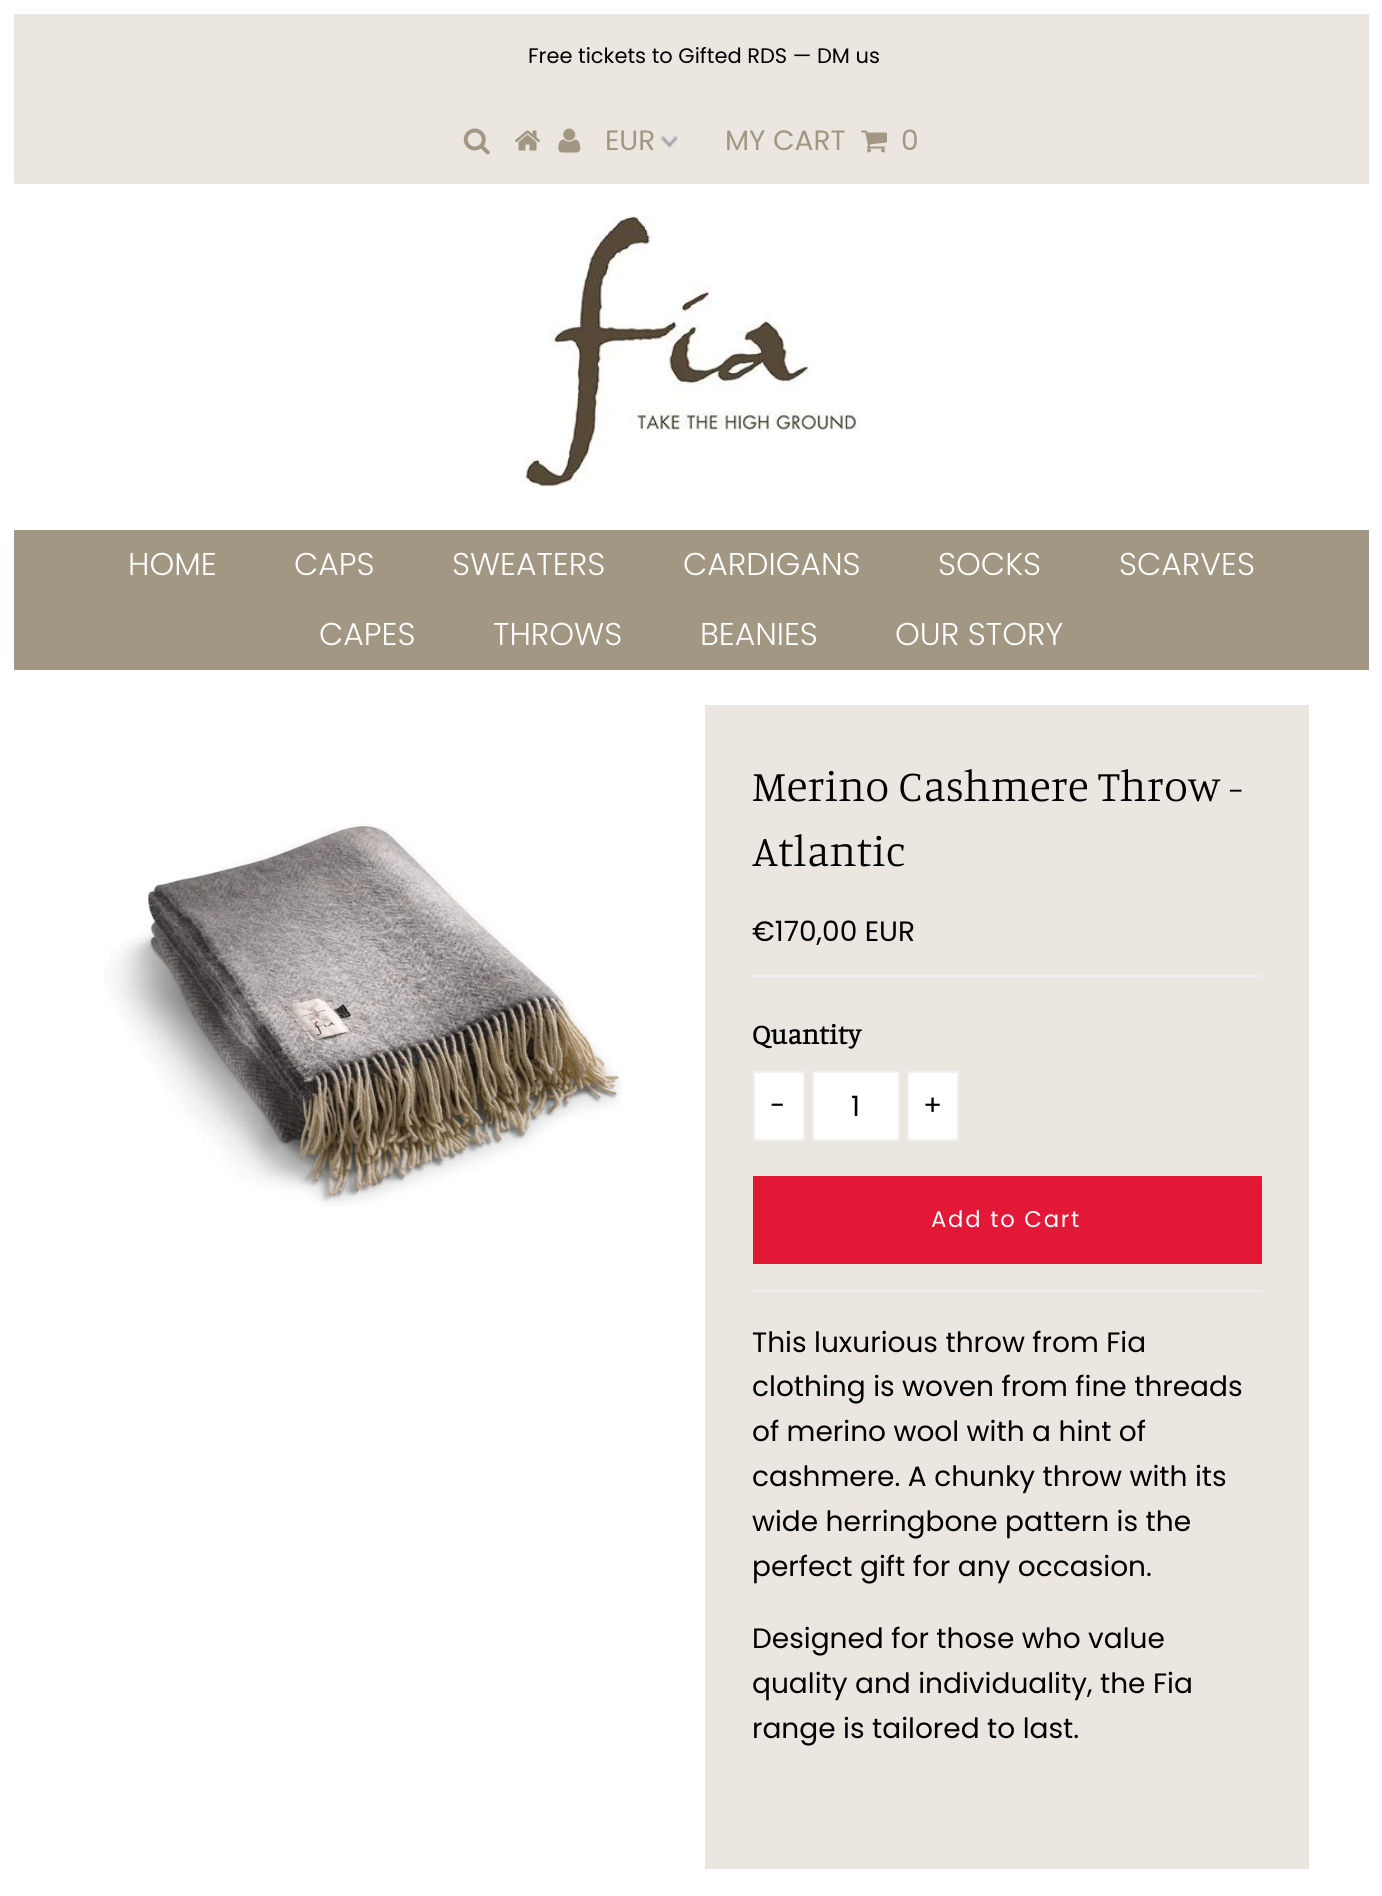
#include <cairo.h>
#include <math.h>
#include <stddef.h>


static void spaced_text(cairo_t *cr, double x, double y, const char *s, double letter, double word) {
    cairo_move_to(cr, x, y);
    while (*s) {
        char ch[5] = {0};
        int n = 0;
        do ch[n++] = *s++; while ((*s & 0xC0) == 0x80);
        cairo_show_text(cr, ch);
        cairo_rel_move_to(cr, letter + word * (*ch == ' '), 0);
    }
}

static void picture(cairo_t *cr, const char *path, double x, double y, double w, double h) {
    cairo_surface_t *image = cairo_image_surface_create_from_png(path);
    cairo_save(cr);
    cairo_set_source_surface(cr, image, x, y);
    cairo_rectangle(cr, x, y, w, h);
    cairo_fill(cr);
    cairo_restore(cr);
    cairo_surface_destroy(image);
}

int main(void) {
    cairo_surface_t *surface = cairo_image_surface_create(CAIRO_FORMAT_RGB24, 1382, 1896);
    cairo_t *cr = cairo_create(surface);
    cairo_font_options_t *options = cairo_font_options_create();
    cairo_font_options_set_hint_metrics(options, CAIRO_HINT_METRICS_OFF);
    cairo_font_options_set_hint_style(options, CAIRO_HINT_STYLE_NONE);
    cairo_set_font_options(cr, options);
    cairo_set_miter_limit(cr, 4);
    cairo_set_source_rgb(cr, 1, 1, 1);
    cairo_paint(cr);
    cairo_set_source_rgb(cr, 0.918, 0.902, 0.875);
    cairo_rectangle(cr, 14, 14, 1355, 170);
    cairo_fill(cr);
    cairo_select_font_face(cr, "Poppins", CAIRO_FONT_SLANT_NORMAL, CAIRO_FONT_WEIGHT_NORMAL);
    cairo_set_font_size(cr, 21);
    cairo_set_source_rgb(cr, 0, 0, 0);
    cairo_move_to(cr, 528, 63);
    cairo_show_text(cr, "Free tickets to Gifted RDS — DM us");
    picture(cr, "img1.png", 463, 128, 27, 27);
    picture(cr, "img2.png", 515, 130, 25, 21);
    picture(cr, "img3.png", 558, 128, 23, 25);
    picture(cr, "img4.png", 661, 136, 17, 12);
    cairo_set_font_size(cr, 28);
    cairo_set_source_rgb(cr, 0.631, 0.592, 0.51);
    cairo_move_to(cr, 605, 150);
    cairo_show_text(cr, "EUR");
    cairo_move_to(cr, 725, 150);
    cairo_show_text(cr, "MY CART");
    picture(cr, "img5.png", 861, 130, 26, 23);
    cairo_move_to(cr, 901, 150);
    cairo_show_text(cr, "0");
    picture(cr, "img6.png", 523, 214, 336, 275);
    cairo_rectangle(cr, 14, 530, 1355, 140);
    cairo_fill(cr);
    cairo_select_font_face(cr, "Poppins Light", CAIRO_FONT_SLANT_NORMAL, CAIRO_FONT_WEIGHT_NORMAL);
    cairo_set_font_size(cr, 31.5);
    cairo_set_source_rgb(cr, 1, 1, 1);
    cairo_move_to(cr, 128, 575);
    cairo_show_text(cr, "HOME");
    cairo_move_to(cr, 294, 575);
    cairo_show_text(cr, "CAPS");
    cairo_move_to(cr, 452, 575);
    cairo_show_text(cr, "SWEATERS");
    cairo_move_to(cr, 683, 575);
    cairo_show_text(cr, "CARDIGANS");
    cairo_move_to(cr, 938, 575);
    cairo_show_text(cr, "SOCKS");
    cairo_move_to(cr, 1119, 575);
    cairo_show_text(cr, "SCARVES");
    cairo_move_to(cr, 319, 645);
    cairo_show_text(cr, "CAPES");
    cairo_move_to(cr, 493, 645);
    cairo_show_text(cr, "THROWS");
    cairo_move_to(cr, 700, 645);
    cairo_show_text(cr, "BEANIES");
    cairo_move_to(cr, 895, 645);
    cairo_show_text(cr, "OUR STORY");
    picture(cr, "img7.png", 104, 823, 519, 384);
    cairo_set_source_rgb(cr, 0.918, 0.902, 0.875);
    cairo_rectangle(cr, 705, 705, 604, 1164);
    cairo_fill(cr);
    cairo_select_font_face(cr, "Manuale Light", CAIRO_FONT_SLANT_NORMAL, CAIRO_FONT_WEIGHT_NORMAL);
    cairo_set_font_size(cr, 43.75);
    cairo_set_source_rgb(cr, 0, 0, 0);
    cairo_move_to(cr, 752, 801);
    cairo_show_text(cr, "Merino Cashmere Throw -");
    cairo_move_to(cr, 752, 866);
    cairo_show_text(cr, "Atlantic");
    cairo_set_source_rgb(cr, 0.941, 0.941, 0.941);
    cairo_rectangle(cr, 753, 1290, 509, 2);
    cairo_fill(cr);
    cairo_rectangle(cr, 753, 975, 509, 2);
    cairo_fill(cr);
    cairo_select_font_face(cr, "Poppins", CAIRO_FONT_SLANT_NORMAL, CAIRO_FONT_WEIGHT_NORMAL);
    cairo_set_font_size(cr, 28);
    cairo_set_source_rgb(cr, 0, 0, 0);
    cairo_move_to(cr, 752, 941);
    cairo_show_text(cr, "€170,00 EUR");
    cairo_select_font_face(cr, "Manuale", CAIRO_FONT_SLANT_NORMAL, CAIRO_FONT_WEIGHT_BOLD);
    cairo_move_to(cr, 752, 1044);
    cairo_show_text(cr, "Quantity");
    cairo_set_source_rgb(cr, 1, 1, 1);
    cairo_rectangle(cr, 754, 1072, 50, 68);
    cairo_fill_preserve(cr);
    cairo_set_source_rgb(cr, 0.941, 0.941, 0.941);
    cairo_stroke(cr);
    cairo_select_font_face(cr, "Poppins", CAIRO_FONT_SLANT_NORMAL, CAIRO_FONT_WEIGHT_NORMAL);
    cairo_set_source_rgb(cr, 0, 0, 0);
    cairo_move_to(cr, 770, 1115);
    cairo_show_text(cr, "-");
    cairo_set_source_rgb(cr, 1, 1, 1);
    cairo_rectangle(cr, 813, 1072, 86, 68);
    cairo_fill_preserve(cr);
    cairo_set_source_rgb(cr, 0.941, 0.941, 0.941);
    cairo_stroke(cr);
    cairo_set_source_rgb(cr, 0, 0, 0);
    cairo_move_to(cr, 851, 1116);
    cairo_show_text(cr, "1");
    cairo_set_source_rgb(cr, 1, 1, 1);
    cairo_rectangle(cr, 908, 1072, 50, 68);
    cairo_fill_preserve(cr);
    cairo_set_source_rgb(cr, 0.941, 0.941, 0.941);
    cairo_stroke(cr);
    cairo_set_source_rgb(cr, 0, 0, 0);
    cairo_move_to(cr, 923, 1115);
    cairo_show_text(cr, "+");
    cairo_set_source_rgb(cr, 0.89, 0.094, 0.216);
    cairo_rectangle(cr, 753, 1176, 509, 88);
    cairo_fill(cr);
    cairo_set_font_size(cr, 22.75);
    cairo_set_source_rgb(cr, 1, 1, 1);
    spaced_text(cr, 931, 1227, "Add to Cart", 1.75, 0);
    cairo_set_font_size(cr, 28);
    cairo_set_source_rgb(cr, 0, 0, 0);
    cairo_move_to(cr, 752, 1352);
    cairo_show_text(cr, "This luxurious throw from Fia");
    cairo_move_to(cr, 752, 1396);
    cairo_show_text(cr, "clothing is woven from fine threads");
    cairo_move_to(cr, 752, 1441);
    cairo_show_text(cr, "of merino wool with a hint of");
    cairo_move_to(cr, 752, 1486);
    cairo_show_text(cr, "cashmere. A chunky throw with its");
    cairo_move_to(cr, 752, 1531);
    cairo_show_text(cr, "wide herringbone pattern is the");
    cairo_move_to(cr, 752, 1576);
    cairo_show_text(cr, "perfect gift for any occasion.");
    cairo_move_to(cr, 752, 1648);
    cairo_show_text(cr, "Designed for those who value");
    cairo_move_to(cr, 752, 1693);
    cairo_show_text(cr, "quality and individuality, the Fia");
    cairo_move_to(cr, 752, 1738);
    cairo_show_text(cr, "range is tailored to last.");
    cairo_surface_write_to_png(surface, "page.png");
    cairo_font_options_destroy(options);
    cairo_destroy(cr);
    cairo_surface_destroy(surface);
    return 0;
}
